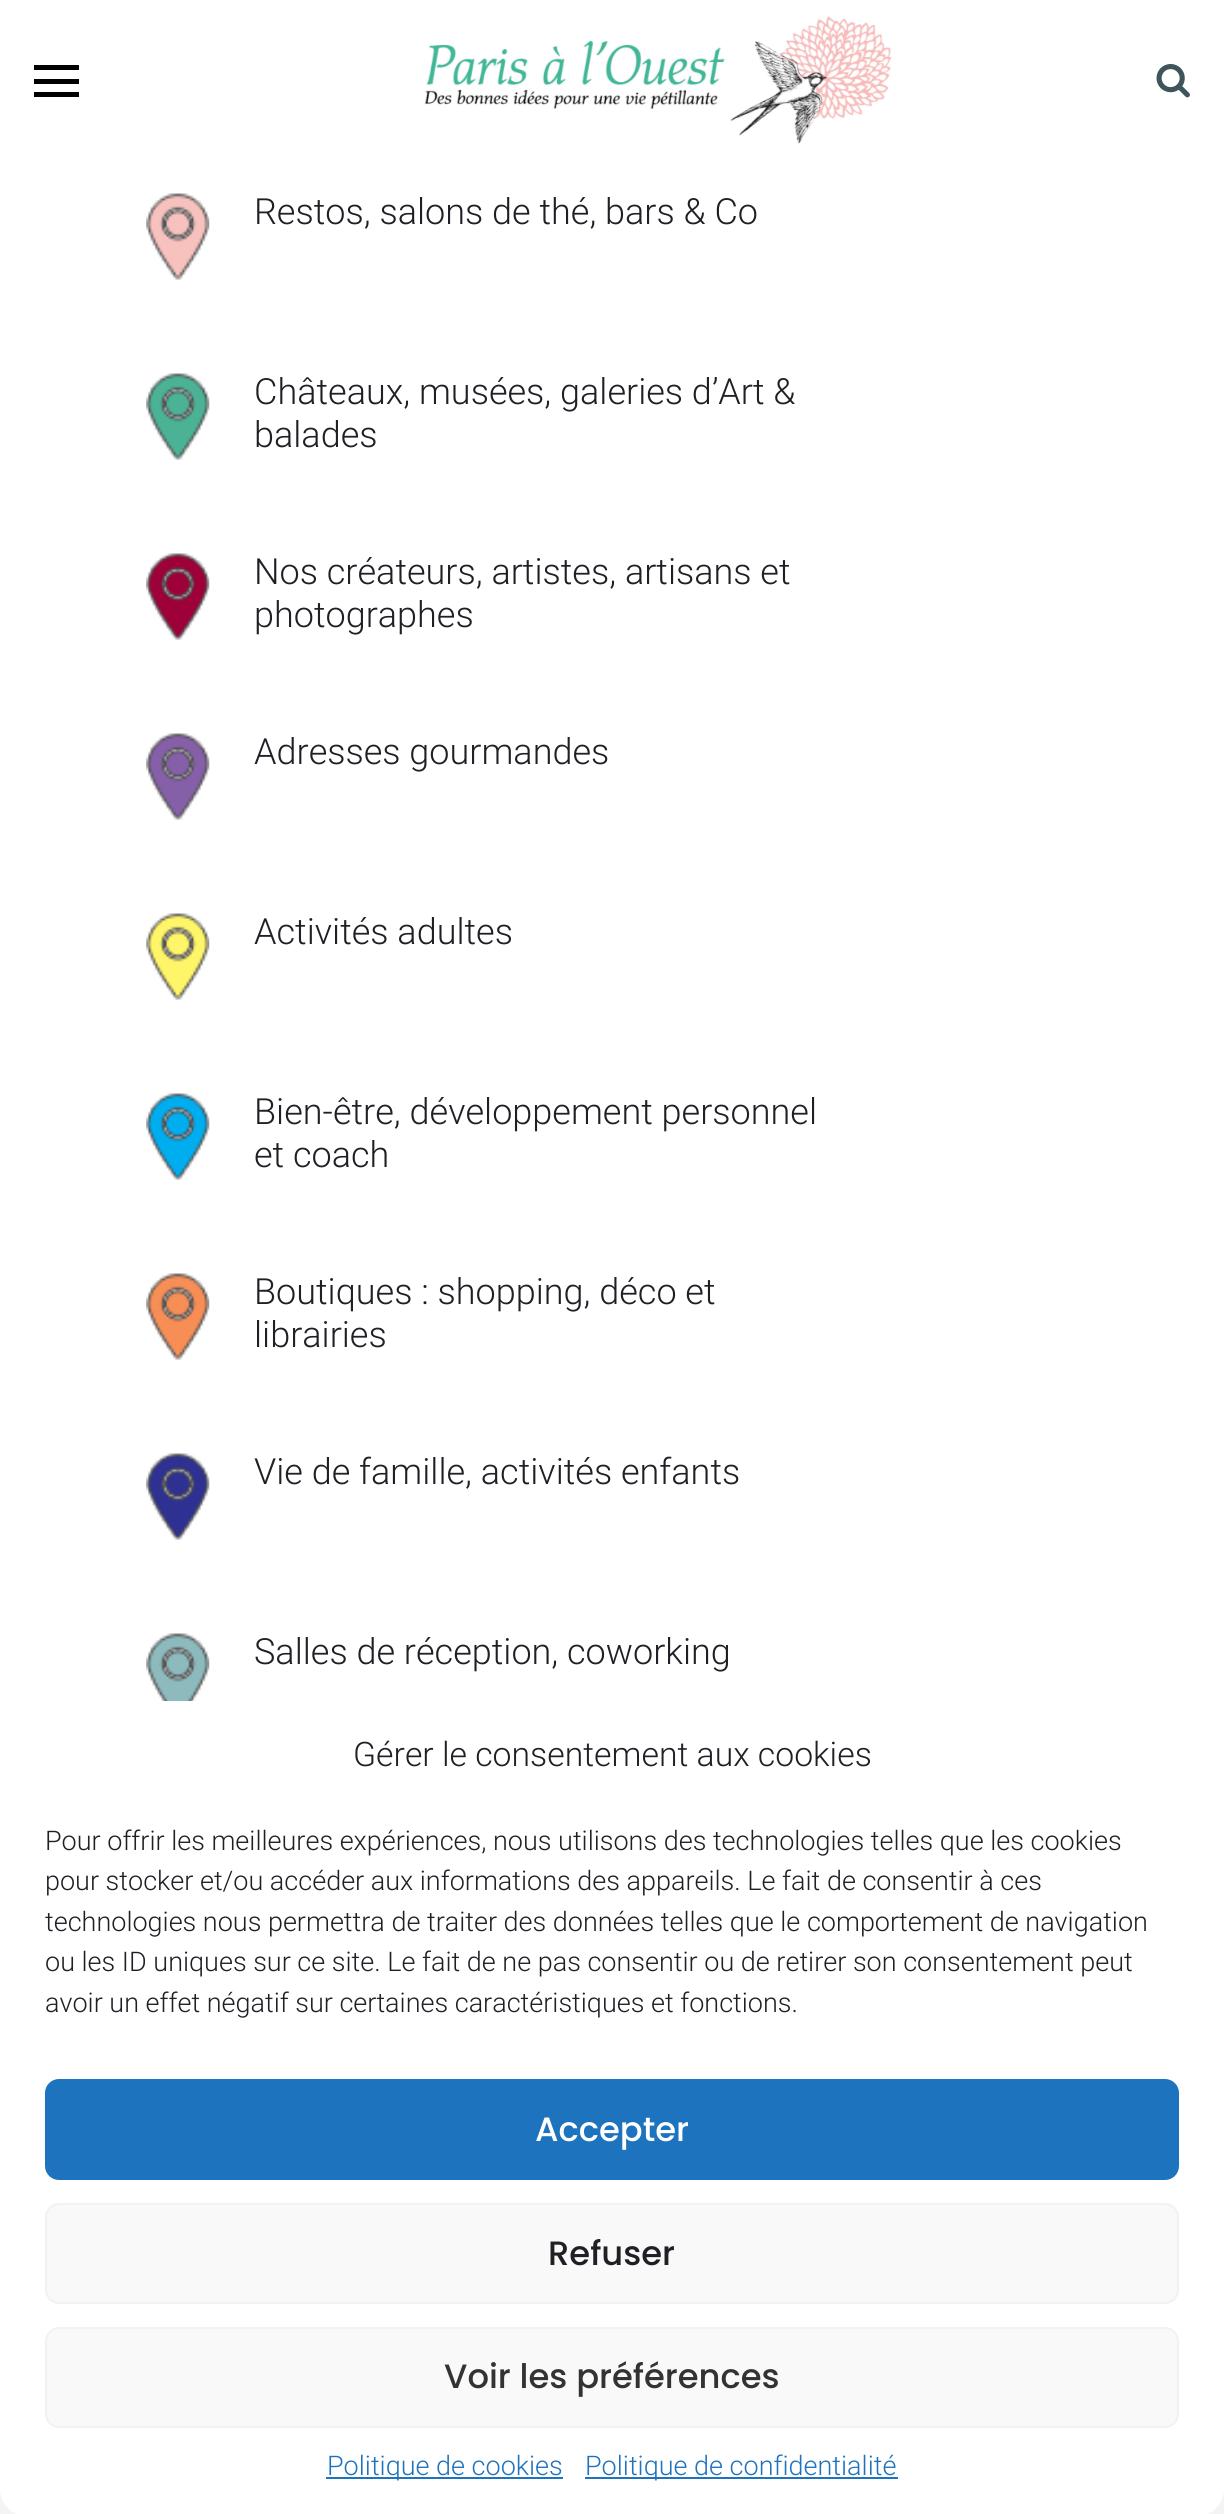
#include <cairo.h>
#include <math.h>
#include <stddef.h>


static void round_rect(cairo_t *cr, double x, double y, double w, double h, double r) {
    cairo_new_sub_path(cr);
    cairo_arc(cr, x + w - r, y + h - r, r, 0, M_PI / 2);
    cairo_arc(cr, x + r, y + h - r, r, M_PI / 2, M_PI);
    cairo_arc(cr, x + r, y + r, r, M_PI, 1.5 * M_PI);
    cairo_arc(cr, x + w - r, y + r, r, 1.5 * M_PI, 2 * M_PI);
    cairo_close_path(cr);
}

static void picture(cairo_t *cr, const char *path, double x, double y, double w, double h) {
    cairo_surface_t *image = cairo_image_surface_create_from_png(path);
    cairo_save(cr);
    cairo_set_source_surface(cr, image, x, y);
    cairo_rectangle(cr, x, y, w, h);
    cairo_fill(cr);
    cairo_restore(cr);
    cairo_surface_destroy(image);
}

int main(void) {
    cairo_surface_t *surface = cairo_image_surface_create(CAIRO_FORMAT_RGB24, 1224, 2514);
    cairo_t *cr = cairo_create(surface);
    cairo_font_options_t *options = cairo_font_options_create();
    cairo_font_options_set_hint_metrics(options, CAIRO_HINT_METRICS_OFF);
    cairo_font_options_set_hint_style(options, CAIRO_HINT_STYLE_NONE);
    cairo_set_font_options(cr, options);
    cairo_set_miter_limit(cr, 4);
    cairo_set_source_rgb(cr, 1, 1, 1);
    cairo_paint(cr);
    cairo_set_source_rgb(cr, 0, 0, 0);
    cairo_rectangle(cr, 34, 65, 45, 5);
    cairo_fill(cr);
    cairo_rectangle(cr, 34, 92, 45, 5);
    cairo_fill(cr);
    cairo_rectangle(cr, 34, 79, 45, 5);
    cairo_fill(cr);
    picture(cr, "img1.png", 424, 16, 468, 128);
    picture(cr, "img2.png", 1156, 64, 34, 34);
    picture(cr, "img3.png", 146, 193, 64, 87);
    cairo_select_font_face(cr, "Roboto Light", CAIRO_FONT_SLANT_NORMAL, CAIRO_FONT_WEIGHT_NORMAL);
    cairo_set_font_size(cr, 36);
    cairo_set_source_rgb(cr, 0.122, 0.125, 0.145);
    cairo_move_to(cr, 254, 224);
    cairo_show_text(cr, "Restos, salons de thé, bars & Co");
    picture(cr, "img4.png", 146, 373, 64, 87);
    cairo_move_to(cr, 254, 404);
    cairo_show_text(cr, "Châteaux, musées, galeries d’Art &");
    cairo_move_to(cr, 254, 447);
    cairo_show_text(cr, "balades");
    picture(cr, "img5.png", 146, 553, 64, 87);
    cairo_move_to(cr, 254, 584);
    cairo_show_text(cr, "Nos créateurs, artistes, artisans et");
    cairo_move_to(cr, 254, 627);
    cairo_show_text(cr, "photographes");
    picture(cr, "img6.png", 146, 733, 64, 87);
    cairo_move_to(cr, 254, 764);
    cairo_show_text(cr, "Adresses gourmandes");
    picture(cr, "img7.png", 146, 913, 64, 87);
    cairo_move_to(cr, 254, 944);
    cairo_show_text(cr, "Activités adultes");
    picture(cr, "img8.png", 146, 1093, 64, 87);
    cairo_move_to(cr, 254, 1124);
    cairo_show_text(cr, "Bien-être, développement personnel");
    cairo_move_to(cr, 254, 1167);
    cairo_show_text(cr, "et coach");
    picture(cr, "img9.png", 146, 1273, 64, 87);
    cairo_move_to(cr, 254, 1304);
    cairo_show_text(cr, "Boutiques : shopping, déco et");
    cairo_move_to(cr, 254, 1347);
    cairo_show_text(cr, "librairies");
    picture(cr, "img10.png", 146, 1453, 64, 87);
    cairo_move_to(cr, 254, 1484);
    cairo_show_text(cr, "Vie de famille, activités enfants");
    picture(cr, "img11.png", 146, 1633, 64, 68);
    cairo_move_to(cr, 254, 1664);
    cairo_show_text(cr, "Salles de réception, coworking");
    cairo_set_source_rgb(cr, 0.957, 0.957, 0.957);
    cairo_rectangle(cr, 0, 2489, 1224, 25);
    cairo_fill(cr);
    cairo_set_source_rgb(cr, 1, 1, 1);
    round_rect(cr, 0, 1701, 1224, 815, 27);
    cairo_fill(cr);
    cairo_set_font_size(cr, 33.75);
    cairo_set_source_rgb(cr, 0.122, 0.125, 0.145);
    cairo_move_to(cr, 353, 1766);
    cairo_show_text(cr, "Gérer le consentement aux cookies");
    cairo_set_font_size(cr, 27);
    cairo_move_to(cr, 45, 1850);
    cairo_show_text(cr, "Pour offrir les meilleures expériences, nous utilisons des technologies telles que les cookies");
    cairo_move_to(cr, 45, 1890);
    cairo_show_text(cr, "pour stocker et/ou accéder aux informations des appareils. Le fait de consentir à ces");
    cairo_move_to(cr, 45, 1931);
    cairo_show_text(cr, "technologies nous permettra de traiter des données telles que le comportement de navigation");
    cairo_move_to(cr, 45, 1971);
    cairo_show_text(cr, "ou les ID uniques sur ce site. Le fait de ne pas consentir ou de retirer son consentement peut");
    cairo_move_to(cr, 45, 2012);
    cairo_show_text(cr, "avoir un effet négatif sur certaines caractéristiques et fonctions.");
    cairo_set_source_rgb(cr, 0.118, 0.451, 0.745);
    round_rect(cr, 46, 2080, 1132, 99, 13);
    cairo_fill_preserve(cr);
    cairo_stroke(cr);
    cairo_select_font_face(cr, "Poppins Medium", CAIRO_FONT_SLANT_NORMAL, CAIRO_FONT_WEIGHT_NORMAL);
    cairo_set_font_size(cr, 33.75);
    cairo_set_source_rgb(cr, 1, 1, 1);
    cairo_move_to(cr, 535, 2141);
    cairo_show_text(cr, "Accepter");
    cairo_set_source_rgb(cr, 0.976, 0.976, 0.976);
    round_rect(cr, 46, 2204, 1132, 99, 13);
    cairo_fill_preserve(cr);
    cairo_set_source_rgb(cr, 0.949, 0.949, 0.949);
    cairo_stroke(cr);
    cairo_set_source_rgb(cr, 0.122, 0.125, 0.145);
    cairo_move_to(cr, 548, 2265);
    cairo_show_text(cr, "Refuser");
    cairo_set_source_rgb(cr, 0.976, 0.976, 0.976);
    round_rect(cr, 46, 2328, 1132, 99, 13);
    cairo_fill_preserve(cr);
    cairo_set_source_rgb(cr, 0.949, 0.949, 0.949);
    cairo_stroke(cr);
    cairo_set_source_rgb(cr, 0.2, 0.2, 0.2);
    cairo_move_to(cr, 444, 2388);
    cairo_show_text(cr, "Voir les préférences");
    cairo_set_source_rgb(cr, 0.118, 0.451, 0.745);
    cairo_rectangle(cr, 326, 2477, 237, 2);
    cairo_fill(cr);
    cairo_select_font_face(cr, "Roboto Light", CAIRO_FONT_SLANT_NORMAL, CAIRO_FONT_WEIGHT_NORMAL);
    cairo_set_font_size(cr, 27);
    cairo_move_to(cr, 327, 2475);
    cairo_show_text(cr, "Politique de cookies");
    cairo_rectangle(cr, 585, 2477, 313, 2);
    cairo_fill(cr);
    cairo_move_to(cr, 585, 2475);
    cairo_show_text(cr, "Politique de confidentialité");
    cairo_surface_write_to_png(surface, "page.png");
    cairo_font_options_destroy(options);
    cairo_destroy(cr);
    cairo_surface_destroy(surface);
    return 0;
}
